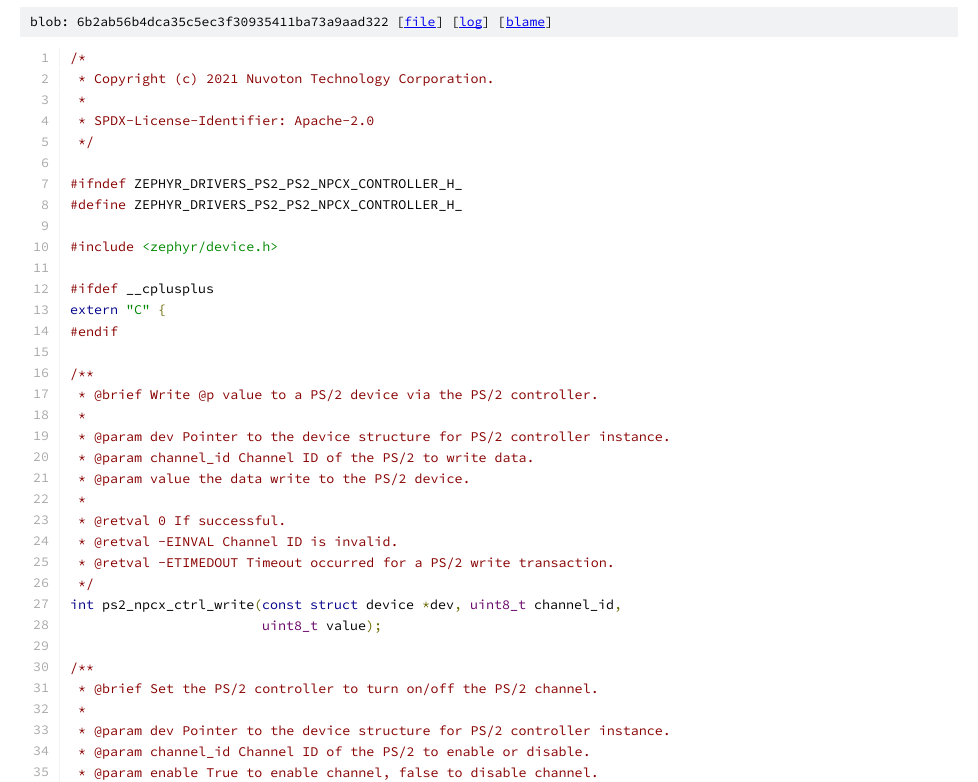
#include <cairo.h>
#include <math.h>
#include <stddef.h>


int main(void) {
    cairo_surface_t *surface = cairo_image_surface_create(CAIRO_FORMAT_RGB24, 978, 782);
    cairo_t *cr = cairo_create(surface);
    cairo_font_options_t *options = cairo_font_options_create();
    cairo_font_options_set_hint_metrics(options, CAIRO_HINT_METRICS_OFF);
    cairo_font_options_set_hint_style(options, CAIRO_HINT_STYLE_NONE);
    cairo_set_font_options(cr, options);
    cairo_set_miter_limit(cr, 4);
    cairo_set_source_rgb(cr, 1, 1, 1);
    cairo_paint(cr);
    cairo_set_source_rgb(cr, 0.945, 0.949, 0.953);
    cairo_rectangle(cr, 20, 7, 938, 30);
    cairo_fill(cr);
    cairo_select_font_face(cr, "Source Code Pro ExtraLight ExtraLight", CAIRO_FONT_SLANT_NORMAL, CAIRO_FONT_WEIGHT_NORMAL);
    cairo_set_font_size(cr, 13);
    cairo_set_source_rgb(cr, 0, 0, 0);
    cairo_move_to(cr, 30, 26);
    cairo_show_text(cr, "blob: 6b2ab56b4dca35c5ec3f30935411ba73a9aad322 [");
    cairo_set_source_rgb(cr, 0, 0, 0.933);
    cairo_move_to(cr, 404, 26);
    cairo_show_text(cr, "file");
    cairo_rectangle(cr, 404, 27, 32, 1);
    cairo_fill(cr);
    cairo_set_source_rgb(cr, 0, 0, 0);
    cairo_move_to(cr, 436, 26);
    cairo_show_text(cr, "] [");
    cairo_set_source_rgb(cr, 0, 0, 0.933);
    cairo_rectangle(cr, 459, 27, 23, 1);
    cairo_fill(cr);
    cairo_move_to(cr, 459, 26);
    cairo_show_text(cr, "log");
    cairo_set_source_rgb(cr, 0, 0, 0);
    cairo_move_to(cr, 482, 26);
    cairo_show_text(cr, "] [");
    cairo_set_source_rgb(cr, 0, 0, 0.933);
    cairo_move_to(cr, 506, 26);
    cairo_show_text(cr, "blame");
    cairo_rectangle(cr, 506, 27, 39, 1);
    cairo_fill(cr);
    cairo_set_source_rgb(cr, 0, 0, 0);
    cairo_move_to(cr, 545, 26);
    cairo_show_text(cr, "]");
    cairo_set_source_rgb(cr, 0.945, 0.949, 0.953);
    cairo_rectangle(cr, 59, 48, 1, 20);
    cairo_fill(cr);
    cairo_set_font_size(cr, 13.35);
    cairo_set_source_rgb(cr, 0.667, 0.667, 0.667);
    cairo_move_to(cr, 41, 62);
    cairo_show_text(cr, "1");
    cairo_set_source_rgb(cr, 0.533, 0, 0);
    cairo_move_to(cr, 70, 62);
    cairo_show_text(cr, "/*");
    cairo_set_source_rgb(cr, 0.945, 0.949, 0.953);
    cairo_rectangle(cr, 59, 69, 1, 20);
    cairo_fill(cr);
    cairo_set_source_rgb(cr, 0.667, 0.667, 0.667);
    cairo_move_to(cr, 41, 83);
    cairo_show_text(cr, "2");
    cairo_set_source_rgb(cr, 0.533, 0, 0);
    cairo_move_to(cr, 78, 83);
    cairo_show_text(cr, "* Copyright (c) 2021 Nuvoton Technology Corporation.");
    cairo_set_source_rgb(cr, 0.945, 0.949, 0.953);
    cairo_rectangle(cr, 59, 90, 1, 692);
    cairo_fill(cr);
    cairo_set_source_rgb(cr, 0.667, 0.667, 0.667);
    cairo_move_to(cr, 41, 104);
    cairo_show_text(cr, "3");
    cairo_set_source_rgb(cr, 0.533, 0, 0);
    cairo_move_to(cr, 78, 104);
    cairo_show_text(cr, "*");
    cairo_set_source_rgb(cr, 0.667, 0.667, 0.667);
    cairo_move_to(cr, 41, 125);
    cairo_show_text(cr, "4");
    cairo_set_source_rgb(cr, 0.533, 0, 0);
    cairo_move_to(cr, 78, 125);
    cairo_show_text(cr, "* SPDX-License-Identifier: Apache-2.0");
    cairo_set_source_rgb(cr, 0.667, 0.667, 0.667);
    cairo_move_to(cr, 41, 146);
    cairo_show_text(cr, "5");
    cairo_set_source_rgb(cr, 0.533, 0, 0);
    cairo_move_to(cr, 78, 146);
    cairo_show_text(cr, "*/");
    cairo_set_source_rgb(cr, 0.667, 0.667, 0.667);
    cairo_move_to(cr, 41, 167);
    cairo_show_text(cr, "6");
    cairo_move_to(cr, 41, 188);
    cairo_show_text(cr, "7");
    cairo_set_source_rgb(cr, 0.533, 0, 0);
    cairo_move_to(cr, 70, 188);
    cairo_show_text(cr, "#ifndef");
    cairo_set_source_rgb(cr, 0, 0, 0);
    cairo_move_to(cr, 134, 188);
    cairo_show_text(cr, "ZEPHYR_DRIVERS_PS2_PS2_NPCX_CONTROLLER_H_");
    cairo_set_source_rgb(cr, 0.667, 0.667, 0.667);
    cairo_move_to(cr, 41, 209);
    cairo_show_text(cr, "8");
    cairo_set_source_rgb(cr, 0.533, 0, 0);
    cairo_move_to(cr, 70, 209);
    cairo_show_text(cr, "#define");
    cairo_set_source_rgb(cr, 0, 0, 0);
    cairo_move_to(cr, 134, 209);
    cairo_show_text(cr, "ZEPHYR_DRIVERS_PS2_PS2_NPCX_CONTROLLER_H_");
    cairo_set_source_rgb(cr, 0.667, 0.667, 0.667);
    cairo_move_to(cr, 41, 230);
    cairo_show_text(cr, "9");
    cairo_move_to(cr, 33, 251);
    cairo_show_text(cr, "10");
    cairo_set_source_rgb(cr, 0.533, 0, 0);
    cairo_move_to(cr, 70, 251);
    cairo_show_text(cr, "#include");
    cairo_set_source_rgb(cr, 0, 0.533, 0);
    cairo_move_to(cr, 142, 251);
    cairo_show_text(cr, "<zephyr/device.h>");
    cairo_set_source_rgb(cr, 0.667, 0.667, 0.667);
    cairo_move_to(cr, 33, 272);
    cairo_show_text(cr, "11");
    cairo_move_to(cr, 33, 293);
    cairo_show_text(cr, "12");
    cairo_set_source_rgb(cr, 0.533, 0, 0);
    cairo_move_to(cr, 70, 293);
    cairo_show_text(cr, "#ifdef");
    cairo_set_source_rgb(cr, 0, 0, 0);
    cairo_move_to(cr, 126, 293);
    cairo_show_text(cr, "__cplusplus");
    cairo_set_source_rgb(cr, 0.667, 0.667, 0.667);
    cairo_move_to(cr, 33, 314);
    cairo_show_text(cr, "13");
    cairo_set_source_rgb(cr, 0, 0, 0.533);
    cairo_move_to(cr, 70, 314);
    cairo_show_text(cr, "extern");
    cairo_set_source_rgb(cr, 0, 0.533, 0);
    cairo_move_to(cr, 126, 314);
    cairo_show_text(cr, "\"C\"");
    cairo_set_source_rgb(cr, 0.4, 0.4, 0);
    cairo_move_to(cr, 158, 314);
    cairo_show_text(cr, "{");
    cairo_set_source_rgb(cr, 0.667, 0.667, 0.667);
    cairo_move_to(cr, 33, 335);
    cairo_show_text(cr, "14");
    cairo_set_source_rgb(cr, 0.533, 0, 0);
    cairo_move_to(cr, 70, 336);
    cairo_show_text(cr, "#endif");
    cairo_set_source_rgb(cr, 0.667, 0.667, 0.667);
    cairo_move_to(cr, 33, 356);
    cairo_show_text(cr, "15");
    cairo_move_to(cr, 33, 377);
    cairo_show_text(cr, "16");
    cairo_set_source_rgb(cr, 0.533, 0, 0);
    cairo_move_to(cr, 70, 378);
    cairo_show_text(cr, "/**");
    cairo_set_source_rgb(cr, 0.667, 0.667, 0.667);
    cairo_move_to(cr, 33, 398);
    cairo_show_text(cr, "17");
    cairo_set_source_rgb(cr, 0.533, 0, 0);
    cairo_move_to(cr, 78, 399);
    cairo_show_text(cr, "* @brief Write @p value to a PS/2 device via the PS/2 controller.");
    cairo_set_source_rgb(cr, 0.667, 0.667, 0.667);
    cairo_move_to(cr, 33, 419);
    cairo_show_text(cr, "18");
    cairo_set_source_rgb(cr, 0.533, 0, 0);
    cairo_move_to(cr, 78, 420);
    cairo_show_text(cr, "*");
    cairo_set_source_rgb(cr, 0.667, 0.667, 0.667);
    cairo_move_to(cr, 33, 440);
    cairo_show_text(cr, "19");
    cairo_set_source_rgb(cr, 0.533, 0, 0);
    cairo_move_to(cr, 78, 441);
    cairo_show_text(cr, "* @param dev Pointer to the device structure for PS/2 controller instance.");
    cairo_set_source_rgb(cr, 0.667, 0.667, 0.667);
    cairo_move_to(cr, 33, 461);
    cairo_show_text(cr, "20");
    cairo_set_source_rgb(cr, 0.533, 0, 0);
    cairo_move_to(cr, 78, 462);
    cairo_show_text(cr, "* @param channel_id Channel ID of the PS/2 to write data.");
    cairo_set_source_rgb(cr, 0.667, 0.667, 0.667);
    cairo_move_to(cr, 33, 482);
    cairo_show_text(cr, "21");
    cairo_set_source_rgb(cr, 0.533, 0, 0);
    cairo_move_to(cr, 78, 483);
    cairo_show_text(cr, "* @param value the data write to the PS/2 device.");
    cairo_set_source_rgb(cr, 0.667, 0.667, 0.667);
    cairo_move_to(cr, 33, 503);
    cairo_show_text(cr, "22");
    cairo_set_source_rgb(cr, 0.533, 0, 0);
    cairo_move_to(cr, 78, 504);
    cairo_show_text(cr, "*");
    cairo_set_source_rgb(cr, 0.667, 0.667, 0.667);
    cairo_move_to(cr, 33, 524);
    cairo_show_text(cr, "23");
    cairo_set_source_rgb(cr, 0.533, 0, 0);
    cairo_move_to(cr, 78, 525);
    cairo_show_text(cr, "* @retval 0 If successful.");
    cairo_set_source_rgb(cr, 0.667, 0.667, 0.667);
    cairo_move_to(cr, 33, 545);
    cairo_show_text(cr, "24");
    cairo_set_source_rgb(cr, 0.533, 0, 0);
    cairo_move_to(cr, 78, 546);
    cairo_show_text(cr, "* @retval -EINVAL Channel ID is invalid.");
    cairo_set_source_rgb(cr, 0.667, 0.667, 0.667);
    cairo_move_to(cr, 33, 566);
    cairo_show_text(cr, "25");
    cairo_set_source_rgb(cr, 0.533, 0, 0);
    cairo_move_to(cr, 78, 567);
    cairo_show_text(cr, "* @retval -ETIMEDOUT Timeout occurred for a PS/2 write transaction.");
    cairo_set_source_rgb(cr, 0.667, 0.667, 0.667);
    cairo_move_to(cr, 33, 587);
    cairo_show_text(cr, "26");
    cairo_set_source_rgb(cr, 0.533, 0, 0);
    cairo_move_to(cr, 78, 588);
    cairo_show_text(cr, "*/");
    cairo_set_source_rgb(cr, 0.667, 0.667, 0.667);
    cairo_move_to(cr, 33, 608);
    cairo_show_text(cr, "27");
    cairo_set_source_rgb(cr, 0, 0, 0.533);
    cairo_move_to(cr, 70, 609);
    cairo_show_text(cr, "int");
    cairo_set_source_rgb(cr, 0, 0, 0);
    cairo_move_to(cr, 102, 609);
    cairo_show_text(cr, "ps2_npcx_ctrl_write");
    cairo_set_source_rgb(cr, 0.4, 0.4, 0);
    cairo_move_to(cr, 254, 609);
    cairo_show_text(cr, "(");
    cairo_set_source_rgb(cr, 0, 0, 0.533);
    cairo_move_to(cr, 262, 609);
    cairo_show_text(cr, "const struct");
    cairo_set_source_rgb(cr, 0, 0, 0);
    cairo_move_to(cr, 366, 609);
    cairo_show_text(cr, "device");
    cairo_set_source_rgb(cr, 0.4, 0.4, 0);
    cairo_move_to(cr, 422, 609);
    cairo_show_text(cr, "*");
    cairo_set_source_rgb(cr, 0, 0, 0);
    cairo_move_to(cr, 430, 609);
    cairo_show_text(cr, "dev");
    cairo_set_source_rgb(cr, 0.4, 0, 0.4);
    cairo_move_to(cr, 470, 609);
    cairo_show_text(cr, "uint8_t");
    cairo_set_source_rgb(cr, 0, 0, 0);
    cairo_move_to(cr, 534, 609);
    cairo_show_text(cr, "channel_id");
    cairo_set_source_rgb(cr, 0.4, 0.4, 0);
    cairo_move_to(cr, 454, 609);
    cairo_show_text(cr, ",");
    cairo_move_to(cr, 614, 609);
    cairo_show_text(cr, ",");
    cairo_set_source_rgb(cr, 0.667, 0.667, 0.667);
    cairo_move_to(cr, 33, 629);
    cairo_show_text(cr, "28");
    cairo_set_source_rgb(cr, 0.4, 0, 0.4);
    cairo_move_to(cr, 262, 630);
    cairo_show_text(cr, "uint8_t");
    cairo_set_source_rgb(cr, 0, 0, 0);
    cairo_move_to(cr, 326, 630);
    cairo_show_text(cr, "value");
    cairo_set_source_rgb(cr, 0.4, 0.4, 0);
    cairo_move_to(cr, 366, 630);
    cairo_show_text(cr, ");");
    cairo_set_source_rgb(cr, 0.667, 0.667, 0.667);
    cairo_move_to(cr, 33, 650);
    cairo_show_text(cr, "29");
    cairo_move_to(cr, 33, 671);
    cairo_show_text(cr, "30");
    cairo_set_source_rgb(cr, 0.533, 0, 0);
    cairo_move_to(cr, 70, 672);
    cairo_show_text(cr, "/**");
    cairo_set_source_rgb(cr, 0.667, 0.667, 0.667);
    cairo_move_to(cr, 33, 692);
    cairo_show_text(cr, "31");
    cairo_set_source_rgb(cr, 0.533, 0, 0);
    cairo_move_to(cr, 78, 693);
    cairo_show_text(cr, "* @brief Set the PS/2 controller to turn on/off the PS/2 channel.");
    cairo_set_source_rgb(cr, 0.667, 0.667, 0.667);
    cairo_move_to(cr, 33, 713);
    cairo_show_text(cr, "32");
    cairo_set_source_rgb(cr, 0.533, 0, 0);
    cairo_move_to(cr, 78, 714);
    cairo_show_text(cr, "*");
    cairo_set_source_rgb(cr, 0.667, 0.667, 0.667);
    cairo_move_to(cr, 33, 734);
    cairo_show_text(cr, "33");
    cairo_set_source_rgb(cr, 0.533, 0, 0);
    cairo_move_to(cr, 78, 735);
    cairo_show_text(cr, "* @param dev Pointer to the device structure for PS/2 controller instance.");
    cairo_set_source_rgb(cr, 0.667, 0.667, 0.667);
    cairo_move_to(cr, 33, 755);
    cairo_show_text(cr, "34");
    cairo_set_source_rgb(cr, 0.533, 0, 0);
    cairo_move_to(cr, 78, 756);
    cairo_show_text(cr, "* @param channel_id Channel ID of the PS/2 to enable or disable.");
    cairo_set_source_rgb(cr, 0.667, 0.667, 0.667);
    cairo_move_to(cr, 33, 776);
    cairo_show_text(cr, "35");
    cairo_set_source_rgb(cr, 0.533, 0, 0);
    cairo_move_to(cr, 78, 777);
    cairo_show_text(cr, "* @param enable True to enable channel, false to disable channel.");
    cairo_surface_write_to_png(surface, "page.png");
    cairo_font_options_destroy(options);
    cairo_destroy(cr);
    cairo_surface_destroy(surface);
    return 0;
}
